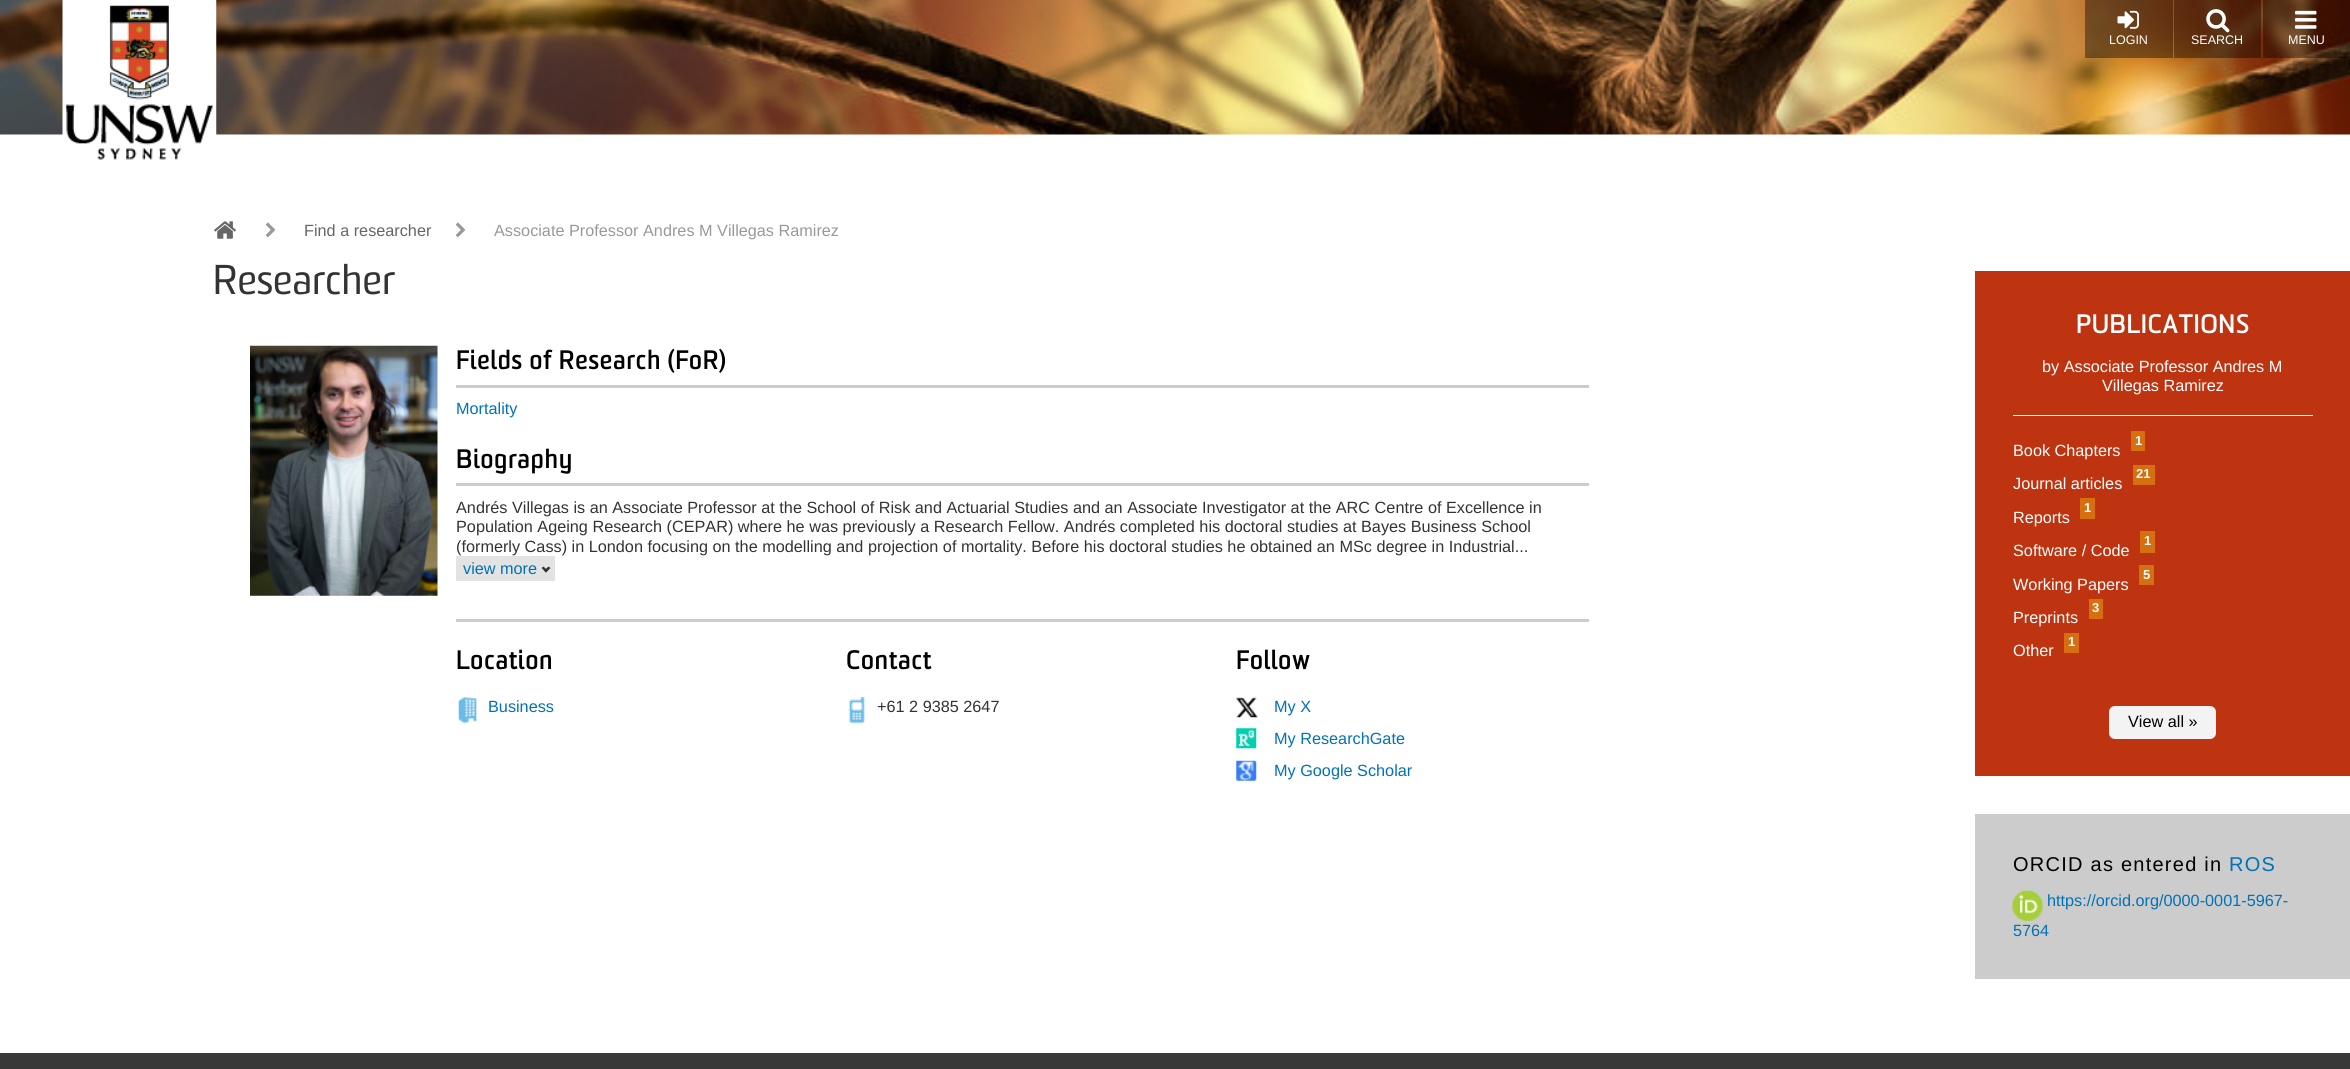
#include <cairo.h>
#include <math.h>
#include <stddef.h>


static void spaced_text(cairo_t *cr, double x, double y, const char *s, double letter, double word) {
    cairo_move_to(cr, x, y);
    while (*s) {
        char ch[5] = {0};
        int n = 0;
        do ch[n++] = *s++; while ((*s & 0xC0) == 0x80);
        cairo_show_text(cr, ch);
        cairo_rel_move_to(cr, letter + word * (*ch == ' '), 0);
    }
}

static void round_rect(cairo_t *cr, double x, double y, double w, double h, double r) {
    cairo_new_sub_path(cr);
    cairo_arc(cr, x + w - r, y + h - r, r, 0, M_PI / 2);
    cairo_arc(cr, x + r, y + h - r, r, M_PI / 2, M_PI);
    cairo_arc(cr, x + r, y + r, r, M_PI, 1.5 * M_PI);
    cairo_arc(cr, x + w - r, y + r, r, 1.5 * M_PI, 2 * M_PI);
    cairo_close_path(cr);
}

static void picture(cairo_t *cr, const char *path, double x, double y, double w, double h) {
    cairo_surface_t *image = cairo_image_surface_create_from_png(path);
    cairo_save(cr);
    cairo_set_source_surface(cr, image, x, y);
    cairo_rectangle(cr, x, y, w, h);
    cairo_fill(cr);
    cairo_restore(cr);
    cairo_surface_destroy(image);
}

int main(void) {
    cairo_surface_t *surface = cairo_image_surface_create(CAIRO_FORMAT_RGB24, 2350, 1069);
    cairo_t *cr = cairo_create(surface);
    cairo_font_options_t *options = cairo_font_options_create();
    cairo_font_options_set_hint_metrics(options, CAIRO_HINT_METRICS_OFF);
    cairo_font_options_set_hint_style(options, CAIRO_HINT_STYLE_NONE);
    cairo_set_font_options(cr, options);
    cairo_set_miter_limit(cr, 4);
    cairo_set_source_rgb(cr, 1, 1, 1);
    cairo_paint(cr);
    picture(cr, "img1.png", 0, 0, 2350, 135);
    picture(cr, "img2.png", 62, 0, 155, 160);
    cairo_set_source_rgba(cr, 0, 0, 0, 0.4);
    cairo_rectangle(cr, 2085, 0, 88, 58);
    cairo_fill(cr);
    picture(cr, "img3.png", 2117, 10, 22, 19);
    cairo_select_font_face(cr, "Liberation Sans", CAIRO_FONT_SLANT_NORMAL, CAIRO_FONT_WEIGHT_NORMAL);
    cairo_set_font_size(cr, 12.5);
    cairo_set_source_rgb(cr, 1, 1, 1);
    cairo_move_to(cr, 2109, 44);
    cairo_show_text(cr, "LOGIN");
    cairo_set_source_rgba(cr, 0, 0, 0, 0.4);
    cairo_rectangle(cr, 2174, 0, 87, 58);
    cairo_fill(cr);
    picture(cr, "img4.png", 2206, 9, 24, 24);
    cairo_set_source_rgb(cr, 1, 1, 1);
    cairo_move_to(cr, 2191, 44);
    cairo_show_text(cr, "SEARCH");
    cairo_set_source_rgba(cr, 0, 0, 0, 0.4);
    cairo_rectangle(cr, 2263, 0, 87, 58);
    cairo_fill(cr);
    picture(cr, "img5.png", 2295, 10, 22, 19);
    cairo_set_source_rgb(cr, 1, 1, 1);
    cairo_move_to(cr, 2288, 44);
    cairo_show_text(cr, "MENU");
    picture(cr, "img6.png", 214, 221, 22, 18);
    picture(cr, "img7.png", 265, 222, 11, 16);
    cairo_set_font_size(cr, 16.25);
    cairo_set_source_rgb(cr, 0.4, 0.4, 0.4);
    cairo_move_to(cr, 304, 236);
    cairo_show_text(cr, "Find a researcher");
    picture(cr, "img7.png", 455, 222, 11, 16);
    cairo_set_source_rgb(cr, 0.6, 0.6, 0.6);
    cairo_move_to(cr, 494, 236);
    cairo_show_text(cr, "Associate Professor Andres M Villegas Ramirez");
    cairo_select_font_face(cr, "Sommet", CAIRO_FONT_SLANT_NORMAL, CAIRO_FONT_WEIGHT_NORMAL);
    cairo_set_font_size(cr, 40.5);
    cairo_set_source_rgb(cr, 0.2, 0.2, 0.2);
    cairo_move_to(cr, 213, 294);
    cairo_show_text(cr, "Researcher");
    picture(cr, "img8.png", 250, 345, 188, 251);
    cairo_set_source_rgb(cr, 0.8, 0.8, 0.8);
    cairo_rectangle(cr, 456, 385, 1133, 3);
    cairo_fill(cr);
    cairo_select_font_face(cr, "Sommet", CAIRO_FONT_SLANT_NORMAL, CAIRO_FONT_WEIGHT_BOLD);
    cairo_set_font_size(cr, 25);
    cairo_set_source_rgb(cr, 0, 0, 0);
    spaced_text(cr, 456, 369, "Fields of Research (FoR)", 1.25, 0);
    cairo_select_font_face(cr, "Liberation Sans", CAIRO_FONT_SLANT_NORMAL, CAIRO_FONT_WEIGHT_NORMAL);
    cairo_set_font_size(cr, 16.25);
    cairo_set_source_rgb(cr, 0, 0.447, 0.71);
    cairo_move_to(cr, 456, 414);
    cairo_show_text(cr, "Mortality");
    cairo_set_source_rgb(cr, 0.8, 0.8, 0.8);
    cairo_rectangle(cr, 456, 483, 1133, 3);
    cairo_fill(cr);
    cairo_select_font_face(cr, "Sommet", CAIRO_FONT_SLANT_NORMAL, CAIRO_FONT_WEIGHT_BOLD);
    cairo_set_font_size(cr, 25);
    cairo_set_source_rgb(cr, 0, 0, 0);
    spaced_text(cr, 456, 468, "Biography", 1.25, 0);
    cairo_select_font_face(cr, "Liberation Sans", CAIRO_FONT_SLANT_NORMAL, CAIRO_FONT_WEIGHT_NORMAL);
    cairo_set_font_size(cr, 16.25);
    cairo_set_source_rgb(cr, 0.2, 0.2, 0.2);
    cairo_move_to(cr, 456, 513);
    cairo_show_text(cr, "Andrés Villegas is an Associate Professor at the School of Risk and Actuarial Studies and an Associate Investigator at the ARC Centre of Excellence in");
    cairo_move_to(cr, 456, 532);
    cairo_show_text(cr, "Population Ageing Research (CEPAR) where he was previously a Research Fellow. Andrés completed his doctoral studies at Bayes Business School");
    cairo_move_to(cr, 456, 552);
    cairo_show_text(cr, "(formerly Cass) in London focusing on the modelling and projection of mortality. Before his doctoral studies he obtained an MSc degree in Industrial...");
    cairo_set_source_rgb(cr, 0.89, 0.89, 0.89);
    cairo_rectangle(cr, 456, 556, 99, 25);
    cairo_fill(cr);
    cairo_set_source_rgb(cr, 0, 0.447, 0.71);
    cairo_move_to(cr, 463, 574);
    cairo_show_text(cr, "view more");
    cairo_set_source_rgb(cr, 0.2, 0.2, 0.2);
    cairo_new_path(cr);
    cairo_move_to(cr, 548.5, 566.5);
    cairo_line_to(cr, 550.5, 568);
    cairo_line_to(cr, 546, 572.5);
    cairo_line_to(cr, 544, 570.5);
    cairo_close_path(cr);
    cairo_fill(cr);
    cairo_new_path(cr);
    cairo_move_to(cr, 543.5, 566.5);
    cairo_line_to(cr, 547.5, 570.5);
    cairo_line_to(cr, 546, 572.5);
    cairo_line_to(cr, 541.5, 568);
    cairo_close_path(cr);
    cairo_fill(cr);
    cairo_set_source_rgb(cr, 0.8, 0.8, 0.8);
    cairo_rectangle(cr, 456, 619, 1133, 3);
    cairo_fill(cr);
    cairo_select_font_face(cr, "Sommet", CAIRO_FONT_SLANT_NORMAL, CAIRO_FONT_WEIGHT_BOLD);
    cairo_set_font_size(cr, 25);
    cairo_set_source_rgb(cr, 0, 0, 0);
    spaced_text(cr, 456, 669, "Location", 1.25, 0);
    picture(cr, "img9.png", 458, 697, 19, 27);
    cairo_select_font_face(cr, "Liberation Sans", CAIRO_FONT_SLANT_NORMAL, CAIRO_FONT_WEIGHT_NORMAL);
    cairo_set_font_size(cr, 16.25);
    cairo_set_source_rgb(cr, 0, 0.447, 0.71);
    cairo_move_to(cr, 488, 712);
    cairo_show_text(cr, "Business");
    cairo_select_font_face(cr, "Sommet", CAIRO_FONT_SLANT_NORMAL, CAIRO_FONT_WEIGHT_BOLD);
    cairo_set_font_size(cr, 25);
    cairo_set_source_rgb(cr, 0, 0, 0);
    spaced_text(cr, 846, 669, "Contact", 1.25, 0);
    picture(cr, "img10.png", 848, 697, 18, 27);
    cairo_select_font_face(cr, "Liberation Sans", CAIRO_FONT_SLANT_NORMAL, CAIRO_FONT_WEIGHT_NORMAL);
    cairo_set_font_size(cr, 16.25);
    cairo_set_source_rgb(cr, 0.2, 0.2, 0.2);
    cairo_move_to(cr, 877, 712);
    cairo_show_text(cr, "+61 2 9385 2647");
    cairo_select_font_face(cr, "Sommet", CAIRO_FONT_SLANT_NORMAL, CAIRO_FONT_WEIGHT_BOLD);
    cairo_set_font_size(cr, 25);
    cairo_set_source_rgb(cr, 0, 0, 0);
    spaced_text(cr, 1236, 669, "Follow", 1.25, 0);
    picture(cr, "img11.png", 1236, 697, 22, 22);
    cairo_select_font_face(cr, "Liberation Sans", CAIRO_FONT_SLANT_NORMAL, CAIRO_FONT_WEIGHT_NORMAL);
    cairo_set_font_size(cr, 16.25);
    cairo_set_source_rgb(cr, 0, 0.447, 0.71);
    cairo_move_to(cr, 1274, 712);
    cairo_show_text(cr, "My X");
    picture(cr, "img12.png", 1236, 728, 21, 21);
    cairo_move_to(cr, 1274, 744);
    cairo_show_text(cr, "My ResearchGate");
    picture(cr, "img13.png", 1236, 760, 21, 21);
    cairo_move_to(cr, 1274, 776);
    cairo_show_text(cr, "My Google Scholar");
    cairo_set_source_rgb(cr, 0.745, 0.204, 0.067);
    cairo_rectangle(cr, 1975, 271, 375, 505);
    cairo_fill(cr);
    cairo_select_font_face(cr, "Sommet", CAIRO_FONT_SLANT_NORMAL, CAIRO_FONT_WEIGHT_BOLD);
    cairo_set_font_size(cr, 25);
    cairo_set_source_rgb(cr, 1, 1, 1);
    spaced_text(cr, 2076, 333, "PUBLICATIONS", 1.25, 0);
    cairo_rectangle(cr, 2013, 415, 300, 1);
    cairo_fill(cr);
    cairo_select_font_face(cr, "Liberation Sans", CAIRO_FONT_SLANT_NORMAL, CAIRO_FONT_WEIGHT_NORMAL);
    cairo_set_font_size(cr, 16.25);
    cairo_move_to(cr, 2042, 372);
    cairo_show_text(cr, "by Associate Professor Andres M");
    cairo_move_to(cr, 2102, 391);
    cairo_show_text(cr, "Villegas Ramirez");
    cairo_set_source_rgb(cr, 0.835, 0.435, 0.063);
    cairo_rectangle(cr, 2131, 431, 14, 20);
    cairo_fill(cr);
    cairo_select_font_face(cr, "Liberation Sans", CAIRO_FONT_SLANT_NORMAL, CAIRO_FONT_WEIGHT_BOLD);
    cairo_set_font_size(cr, 13);
    cairo_set_source_rgb(cr, 1, 1, 1);
    cairo_move_to(cr, 2135, 445);
    cairo_show_text(cr, "1");
    cairo_select_font_face(cr, "Liberation Sans", CAIRO_FONT_SLANT_NORMAL, CAIRO_FONT_WEIGHT_NORMAL);
    cairo_set_font_size(cr, 16.25);
    cairo_move_to(cr, 2013, 456);
    cairo_show_text(cr, "Book Chapters");
    cairo_set_source_rgb(cr, 0.835, 0.435, 0.063);
    cairo_rectangle(cr, 2133, 465, 22, 20);
    cairo_fill(cr);
    cairo_select_font_face(cr, "Liberation Sans", CAIRO_FONT_SLANT_NORMAL, CAIRO_FONT_WEIGHT_BOLD);
    cairo_set_font_size(cr, 13);
    cairo_set_source_rgb(cr, 1, 1, 1);
    cairo_move_to(cr, 2136, 478);
    cairo_show_text(cr, "21");
    cairo_select_font_face(cr, "Liberation Sans", CAIRO_FONT_SLANT_NORMAL, CAIRO_FONT_WEIGHT_NORMAL);
    cairo_set_font_size(cr, 16.25);
    cairo_move_to(cr, 2013, 489);
    cairo_show_text(cr, "Journal articles");
    cairo_set_source_rgb(cr, 0.835, 0.435, 0.063);
    cairo_rectangle(cr, 2080, 498, 15, 21);
    cairo_fill(cr);
    cairo_select_font_face(cr, "Liberation Sans", CAIRO_FONT_SLANT_NORMAL, CAIRO_FONT_WEIGHT_BOLD);
    cairo_set_font_size(cr, 13);
    cairo_set_source_rgb(cr, 1, 1, 1);
    cairo_move_to(cr, 2084, 512);
    cairo_show_text(cr, "1");
    cairo_select_font_face(cr, "Liberation Sans", CAIRO_FONT_SLANT_NORMAL, CAIRO_FONT_WEIGHT_NORMAL);
    cairo_set_font_size(cr, 16.25);
    cairo_move_to(cr, 2013, 523);
    cairo_show_text(cr, "Reports");
    cairo_set_source_rgb(cr, 0.835, 0.435, 0.063);
    cairo_rectangle(cr, 2140, 531, 15, 22);
    cairo_fill(cr);
    cairo_select_font_face(cr, "Liberation Sans", CAIRO_FONT_SLANT_NORMAL, CAIRO_FONT_WEIGHT_BOLD);
    cairo_set_font_size(cr, 13);
    cairo_set_source_rgb(cr, 1, 1, 1);
    cairo_move_to(cr, 2144, 545);
    cairo_show_text(cr, "1");
    cairo_select_font_face(cr, "Liberation Sans", CAIRO_FONT_SLANT_NORMAL, CAIRO_FONT_WEIGHT_NORMAL);
    cairo_set_font_size(cr, 16.25);
    cairo_move_to(cr, 2013, 556);
    cairo_show_text(cr, "Software / Code");
    cairo_set_source_rgb(cr, 0.835, 0.435, 0.063);
    cairo_rectangle(cr, 2139, 565, 15, 20);
    cairo_fill(cr);
    cairo_select_font_face(cr, "Liberation Sans", CAIRO_FONT_SLANT_NORMAL, CAIRO_FONT_WEIGHT_BOLD);
    cairo_set_font_size(cr, 13);
    cairo_set_source_rgb(cr, 1, 1, 1);
    cairo_move_to(cr, 2143, 579);
    cairo_show_text(cr, "5");
    cairo_select_font_face(cr, "Liberation Sans", CAIRO_FONT_SLANT_NORMAL, CAIRO_FONT_WEIGHT_NORMAL);
    cairo_set_font_size(cr, 16.25);
    cairo_move_to(cr, 2013, 590);
    cairo_show_text(cr, "Working Papers");
    cairo_set_source_rgb(cr, 0.835, 0.435, 0.063);
    cairo_rectangle(cr, 2089, 599, 14, 20);
    cairo_fill(cr);
    cairo_select_font_face(cr, "Liberation Sans", CAIRO_FONT_SLANT_NORMAL, CAIRO_FONT_WEIGHT_BOLD);
    cairo_set_font_size(cr, 13);
    cairo_set_source_rgb(cr, 1, 1, 1);
    cairo_move_to(cr, 2092, 612);
    cairo_show_text(cr, "3");
    cairo_select_font_face(cr, "Liberation Sans", CAIRO_FONT_SLANT_NORMAL, CAIRO_FONT_WEIGHT_NORMAL);
    cairo_set_font_size(cr, 16.25);
    cairo_move_to(cr, 2013, 623);
    cairo_show_text(cr, "Preprints");
    cairo_set_source_rgb(cr, 0.835, 0.435, 0.063);
    cairo_rectangle(cr, 2064, 633, 15, 20);
    cairo_fill(cr);
    cairo_select_font_face(cr, "Liberation Sans", CAIRO_FONT_SLANT_NORMAL, CAIRO_FONT_WEIGHT_BOLD);
    cairo_set_font_size(cr, 13);
    cairo_set_source_rgb(cr, 1, 1, 1);
    cairo_move_to(cr, 2068, 646);
    cairo_show_text(cr, "1");
    cairo_select_font_face(cr, "Liberation Sans", CAIRO_FONT_SLANT_NORMAL, CAIRO_FONT_WEIGHT_NORMAL);
    cairo_set_font_size(cr, 16.25);
    cairo_move_to(cr, 2013, 656);
    cairo_show_text(cr, "Other");
    cairo_set_source_rgb(cr, 0.953, 0.953, 0.953);
    round_rect(cr, 2109, 706, 107, 33, 6);
    cairo_fill(cr);
    cairo_set_source_rgb(cr, 0, 0, 0);
    cairo_move_to(cr, 2128, 727);
    cairo_show_text(cr, "View all »");
    cairo_set_source_rgb(cr, 0.8, 0.8, 0.8);
    cairo_rectangle(cr, 1975, 814, 375, 165);
    cairo_fill(cr);
    cairo_set_font_size(cr, 20);
    cairo_set_source_rgb(cr, 0, 0, 0);
    spaced_text(cr, 2013, 871, "ORCID as entered in", 1.25, 0);
    cairo_set_source_rgb(cr, 0, 0.447, 0.71);
    spaced_text(cr, 2229, 871, "ROS", 1.25, 0);
    picture(cr, "img14.png", 2012, 890, 31, 31);
    cairo_set_font_size(cr, 16.25);
    cairo_move_to(cr, 2047, 906);
    cairo_show_text(cr, "https://orcid.org/0000-0001-5967-");
    cairo_move_to(cr, 2013, 936);
    cairo_show_text(cr, "5764");
    cairo_set_source_rgb(cr, 0.22, 0.22, 0.22);
    cairo_rectangle(cr, 0, 1053, 2350, 16);
    cairo_fill(cr);
    cairo_surface_write_to_png(surface, "page.png");
    cairo_font_options_destroy(options);
    cairo_destroy(cr);
    cairo_surface_destroy(surface);
    return 0;
}
